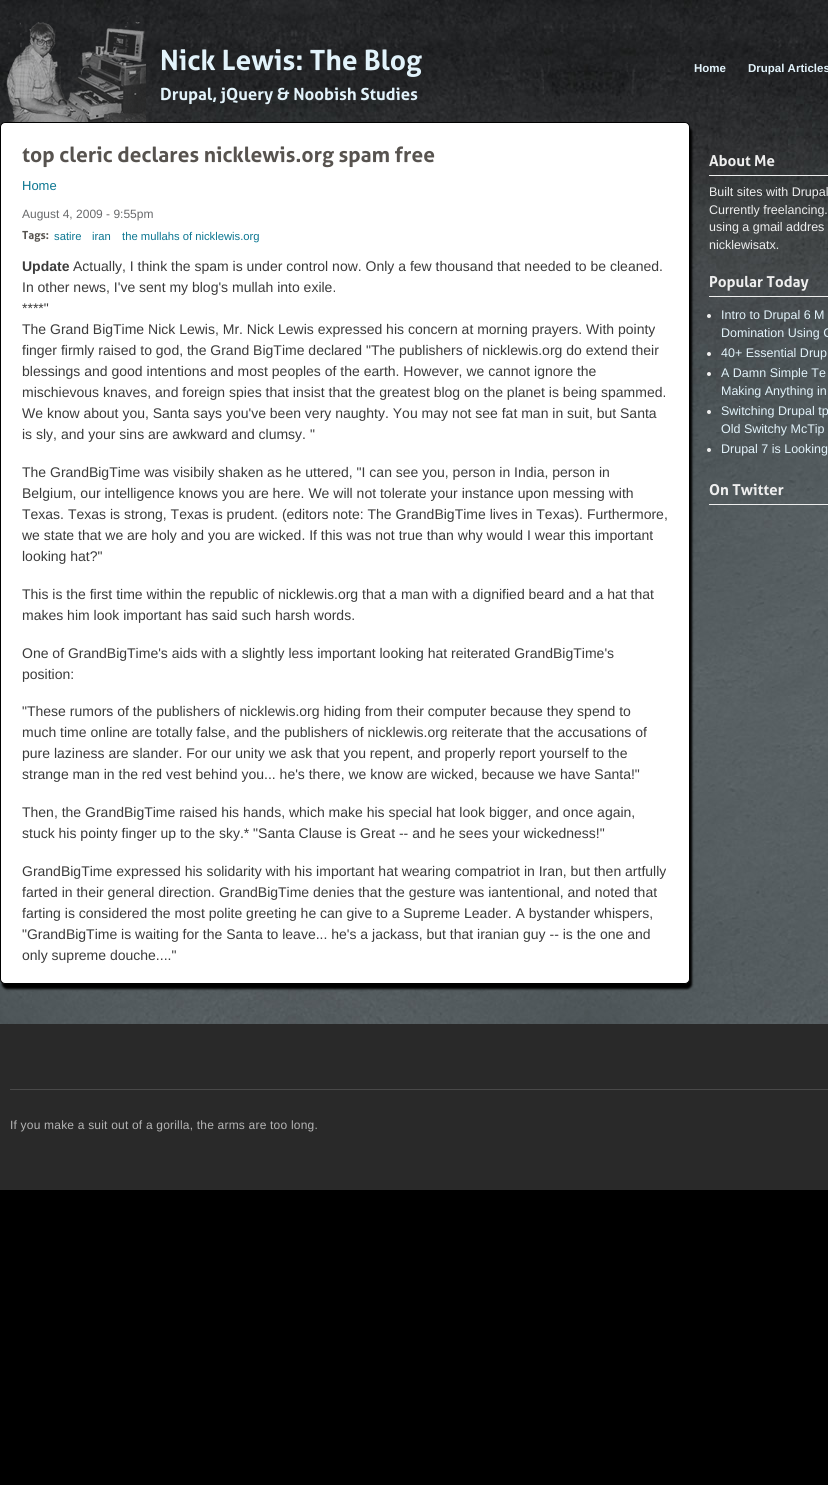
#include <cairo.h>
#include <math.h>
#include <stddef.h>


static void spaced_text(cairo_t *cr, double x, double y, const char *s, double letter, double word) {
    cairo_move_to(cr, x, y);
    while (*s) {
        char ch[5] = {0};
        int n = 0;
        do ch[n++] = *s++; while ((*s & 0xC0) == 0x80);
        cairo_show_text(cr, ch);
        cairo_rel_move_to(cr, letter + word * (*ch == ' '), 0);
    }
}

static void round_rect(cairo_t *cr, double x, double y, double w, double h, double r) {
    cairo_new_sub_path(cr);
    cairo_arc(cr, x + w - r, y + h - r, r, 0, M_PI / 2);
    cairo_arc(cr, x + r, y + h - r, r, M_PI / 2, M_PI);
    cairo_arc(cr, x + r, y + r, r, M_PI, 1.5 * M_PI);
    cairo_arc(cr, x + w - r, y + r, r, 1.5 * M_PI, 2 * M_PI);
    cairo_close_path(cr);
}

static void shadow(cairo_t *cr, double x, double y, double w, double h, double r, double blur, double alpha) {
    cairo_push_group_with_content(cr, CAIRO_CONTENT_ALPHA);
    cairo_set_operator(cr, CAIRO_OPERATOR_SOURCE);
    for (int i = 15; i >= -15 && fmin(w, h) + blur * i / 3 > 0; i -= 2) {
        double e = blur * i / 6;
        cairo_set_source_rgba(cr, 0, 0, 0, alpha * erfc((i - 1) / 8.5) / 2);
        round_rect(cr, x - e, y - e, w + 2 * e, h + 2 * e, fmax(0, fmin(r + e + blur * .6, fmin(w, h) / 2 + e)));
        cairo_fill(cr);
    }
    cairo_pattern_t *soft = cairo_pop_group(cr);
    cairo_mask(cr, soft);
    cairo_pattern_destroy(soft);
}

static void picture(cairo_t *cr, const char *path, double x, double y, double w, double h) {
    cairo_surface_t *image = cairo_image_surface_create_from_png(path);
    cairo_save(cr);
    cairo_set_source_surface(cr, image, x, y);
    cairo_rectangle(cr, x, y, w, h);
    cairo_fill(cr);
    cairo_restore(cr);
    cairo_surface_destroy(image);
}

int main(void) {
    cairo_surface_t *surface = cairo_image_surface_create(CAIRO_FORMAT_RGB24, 828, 1485);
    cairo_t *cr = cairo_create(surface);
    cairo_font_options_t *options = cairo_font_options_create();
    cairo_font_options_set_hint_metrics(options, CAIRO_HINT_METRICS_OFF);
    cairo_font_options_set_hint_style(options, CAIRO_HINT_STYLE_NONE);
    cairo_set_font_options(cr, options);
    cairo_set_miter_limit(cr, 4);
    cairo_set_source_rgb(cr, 0, 0, 0);
    cairo_paint(cr);
    picture(cr, "img1.png", 0, 0, 828, 1024);
    picture(cr, "img2.png", 0, 22, 146, 100);
    picture(cr, "img3.png", 161, 49, 261, 28);
    picture(cr, "img4.png", 161, 87, 257, 18);
    cairo_select_font_face(cr, "Liberation Sans", CAIRO_FONT_SLANT_NORMAL, CAIRO_FONT_WEIGHT_BOLD);
    cairo_set_font_size(cr, 11.5);
    cairo_set_source_rgb(cr, 0.886, 0.953, 0.984);
    cairo_move_to(cr, 694, 72);
    cairo_show_text(cr, "Home");
    cairo_move_to(cr, 748, 72);
    cairo_show_text(cr, "Drupal Articles");
    cairo_set_source_rgb(cr, 0, 0, 0);
    shadow(cr, 2, 127, 690, 862, 5, 1, 1);
    cairo_set_source_rgb(cr, 1, 1, 1);
    round_rect(cr, 0.5, 122.5, 689, 861, 4.5);
    cairo_fill_preserve(cr);
    cairo_set_source_rgb(cr, 0, 0, 0);
    cairo_set_line_width(cr, 1);
    cairo_stroke(cr);
    picture(cr, "img5.png", 22, 146, 413, 22);
    cairo_select_font_face(cr, "Liberation Sans", CAIRO_FONT_SLANT_NORMAL, CAIRO_FONT_WEIGHT_NORMAL);
    cairo_set_font_size(cr, 13);
    cairo_set_source_rgb(cr, 0.043, 0.463, 0.569);
    cairo_move_to(cr, 22, 190);
    cairo_show_text(cr, "Home");
    cairo_set_font_size(cr, 12);
    cairo_set_source_rgb(cr, 0.408, 0.412, 0.42);
    cairo_move_to(cr, 22, 218);
    cairo_show_text(cr, "August 4, 2009 - 9:55pm");
    picture(cr, "img6.png", 22, 230, 27, 12);
    cairo_set_font_size(cr, 11.25);
    cairo_set_source_rgb(cr, 0.043, 0.463, 0.569);
    cairo_move_to(cr, 54, 240);
    cairo_show_text(cr, "satire");
    cairo_move_to(cr, 92, 240);
    cairo_show_text(cr, "iran");
    cairo_move_to(cr, 122, 240);
    cairo_show_text(cr, "the mullahs of nicklewis.org");
    cairo_select_font_face(cr, "Liberation Sans", CAIRO_FONT_SLANT_NORMAL, CAIRO_FONT_WEIGHT_BOLD);
    cairo_set_font_size(cr, 14);
    cairo_set_source_rgb(cr, 0.231, 0.231, 0.231);
    cairo_move_to(cr, 22, 271);
    cairo_show_text(cr, "Update");
    cairo_select_font_face(cr, "Liberation Sans", CAIRO_FONT_SLANT_NORMAL, CAIRO_FONT_WEIGHT_NORMAL);
    cairo_move_to(cr, 73, 271);
    cairo_show_text(cr, "Actually, I think the spam is under control now. Only a few thousand that needed to be cleaned.");
    cairo_move_to(cr, 22, 292);
    cairo_show_text(cr, "In other news, I've sent my blog's mullah into exile.");
    cairo_move_to(cr, 22, 313);
    cairo_show_text(cr, "****\"");
    cairo_move_to(cr, 22, 334);
    cairo_show_text(cr, "The Grand BigTime Nick Lewis, Mr. Nick Lewis expressed his concern at morning prayers. With pointy");
    cairo_move_to(cr, 22, 355);
    cairo_show_text(cr, "finger firmly raised to god, the Grand BigTime declared \"The publishers of nicklewis.org do extend their");
    cairo_move_to(cr, 22, 376);
    cairo_show_text(cr, "blessings and good intentions and most peoples of the earth. However, we cannot ignore the");
    cairo_move_to(cr, 22, 397);
    cairo_show_text(cr, "mischievous knaves, and foreign spies that insist that the greatest blog on the planet is being spammed.");
    cairo_move_to(cr, 22, 418);
    cairo_show_text(cr, "We know about you, Santa says you've been very naughty. You may not see fat man in suit, but Santa");
    cairo_move_to(cr, 22, 439);
    cairo_show_text(cr, "is sly, and your sins are awkward and clumsy. \"");
    cairo_move_to(cr, 22, 477);
    cairo_show_text(cr, "The GrandBigTime was visibily shaken as he uttered, \"I can see you, person in India, person in");
    cairo_move_to(cr, 22, 498);
    cairo_show_text(cr, "Belgium, our intelligence knows you are here. We will not tolerate your instance upon messing with");
    cairo_move_to(cr, 22, 519);
    cairo_show_text(cr, "Texas. Texas is strong, Texas is prudent. (editors note: The GrandBigTime lives in Texas). Furthermore,");
    cairo_move_to(cr, 22, 540);
    cairo_show_text(cr, "we state that we are holy and you are wicked. If this was not true than why would I wear this important");
    cairo_move_to(cr, 22, 561);
    cairo_show_text(cr, "looking hat?\"");
    cairo_move_to(cr, 22, 599);
    cairo_show_text(cr, "This is the first time within the republic of nicklewis.org that a man with a dignified beard and a hat that");
    cairo_move_to(cr, 22, 620);
    cairo_show_text(cr, "makes him look important has said such harsh words.");
    cairo_move_to(cr, 22, 658);
    cairo_show_text(cr, "One of GrandBigTime's aids with a slightly less important looking hat reiterated GrandBigTime's");
    cairo_move_to(cr, 22, 679);
    cairo_show_text(cr, "position:");
    cairo_move_to(cr, 22, 716);
    cairo_show_text(cr, "\"These rumors of the publishers of nicklewis.org hiding from their computer because they spend to");
    cairo_move_to(cr, 22, 737);
    cairo_show_text(cr, "much time online are totally false, and the publishers of nicklewis.org reiterate that the accusations of");
    cairo_move_to(cr, 22, 758);
    cairo_show_text(cr, "pure laziness are slander. For our unity we ask that you repent, and properly report yourself to the");
    cairo_move_to(cr, 22, 779);
    cairo_show_text(cr, "strange man in the red vest behind you... he's there, we know are wicked, because we have Santa!\"");
    cairo_move_to(cr, 22, 817);
    cairo_show_text(cr, "Then, the GrandBigTime raised his hands, which make his special hat look bigger, and once again,");
    cairo_move_to(cr, 22, 838);
    cairo_show_text(cr, "stuck his pointy finger up to the sky.* \"Santa Clause is Great -- and he sees your wickedness!\"");
    cairo_move_to(cr, 22, 876);
    cairo_show_text(cr, "GrandBigTime expressed his solidarity with his important hat wearing compatriot in Iran, but then artfully");
    cairo_move_to(cr, 22, 897);
    cairo_show_text(cr, "farted in their general direction. GrandBigTime denies that the gesture was iantentional, and noted that");
    cairo_move_to(cr, 22, 918);
    cairo_show_text(cr, "farting is considered the most polite greeting he can give to a Supreme Leader. A bystander whispers,");
    cairo_move_to(cr, 22, 939);
    cairo_show_text(cr, "\"GrandBigTime is waiting for the Santa to leave... he's a jackass, but that iranian guy -- is the one and");
    cairo_move_to(cr, 22, 960);
    cairo_show_text(cr, "only supreme douche....\"");
    cairo_set_source_rgb(cr, 0.933, 0.933, 0.933);
    cairo_rectangle(cr, 709, 175, 119, 1);
    cairo_fill(cr);
    picture(cr, "img7.png", 709, 154, 66, 13);
    cairo_set_font_size(cr, 12.5);
    cairo_move_to(cr, 709, 196);
    cairo_show_text(cr, "Built sites with Drupal");
    cairo_move_to(cr, 709, 214);
    cairo_show_text(cr, "Currently freelancing.");
    cairo_move_to(cr, 709, 231);
    cairo_show_text(cr, "using a gmail addres");
    cairo_move_to(cr, 709, 249);
    cairo_show_text(cr, "nicklewisatx.");
    cairo_rectangle(cr, 709, 296, 119, 1);
    cairo_fill(cr);
    picture(cr, "img8.png", 710, 275, 99, 16);
    cairo_arc(cr, 709, 316, 2, 0, 2 * M_PI);
    cairo_fill(cr);
    cairo_set_source_rgb(cr, 0.886, 0.953, 0.984);
    cairo_move_to(cr, 721, 319);
    cairo_show_text(cr, "Intro to Drupal 6 M");
    cairo_move_to(cr, 721, 337);
    cairo_show_text(cr, "Domination Using C");
    cairo_set_source_rgb(cr, 0.933, 0.933, 0.933);
    cairo_new_path(cr);
    cairo_arc(cr, 709, 354, 2, 0, 2 * M_PI);
    cairo_fill(cr);
    cairo_set_source_rgb(cr, 0.886, 0.953, 0.984);
    cairo_move_to(cr, 721, 357);
    cairo_show_text(cr, "40+ Essential Drup");
    cairo_set_source_rgb(cr, 0.933, 0.933, 0.933);
    cairo_new_path(cr);
    cairo_arc(cr, 709, 374, 2, 0, 2 * M_PI);
    cairo_fill(cr);
    cairo_set_source_rgb(cr, 0.886, 0.953, 0.984);
    cairo_move_to(cr, 721, 377);
    cairo_show_text(cr, "A Damn Simple Te");
    cairo_move_to(cr, 721, 395);
    cairo_show_text(cr, "Making Anything in");
    cairo_set_source_rgb(cr, 0.933, 0.933, 0.933);
    cairo_new_path(cr);
    cairo_arc(cr, 709, 412, 2, 0, 2 * M_PI);
    cairo_fill(cr);
    cairo_set_source_rgb(cr, 0.886, 0.953, 0.984);
    cairo_move_to(cr, 721, 415);
    cairo_show_text(cr, "Switching Drupal tp");
    cairo_move_to(cr, 721, 433);
    cairo_show_text(cr, "Old Switchy McTip");
    cairo_set_source_rgb(cr, 0.933, 0.933, 0.933);
    cairo_new_path(cr);
    cairo_arc(cr, 709, 450, 2, 0, 2 * M_PI);
    cairo_fill(cr);
    cairo_set_source_rgb(cr, 0.886, 0.953, 0.984);
    cairo_move_to(cr, 721, 453);
    cairo_show_text(cr, "Drupal 7 is Looking");
    cairo_set_source_rgb(cr, 0.933, 0.933, 0.933);
    cairo_rectangle(cr, 709, 504, 119, 1);
    cairo_fill(cr);
    picture(cr, "img9.png", 709, 483, 75, 13);
    cairo_set_source_rgb(cr, 0.161, 0.161, 0.161);
    cairo_rectangle(cr, 0, 1024, 828, 166);
    cairo_fill(cr);
    cairo_set_source_rgb(cr, 0.286, 0.286, 0.286);
    cairo_rectangle(cr, 10, 1089, 818, 1);
    cairo_fill(cr);
    cairo_set_font_size(cr, 12);
    cairo_set_source_rgb(cr, 0.706, 0.706, 0.706);
    spaced_text(cr, 10, 1129, "If you make a suit out of a gorilla, the arms are too long.", 0.2, 0);
    cairo_surface_write_to_png(surface, "page.png");
    cairo_font_options_destroy(options);
    cairo_destroy(cr);
    cairo_surface_destroy(surface);
    return 0;
}
